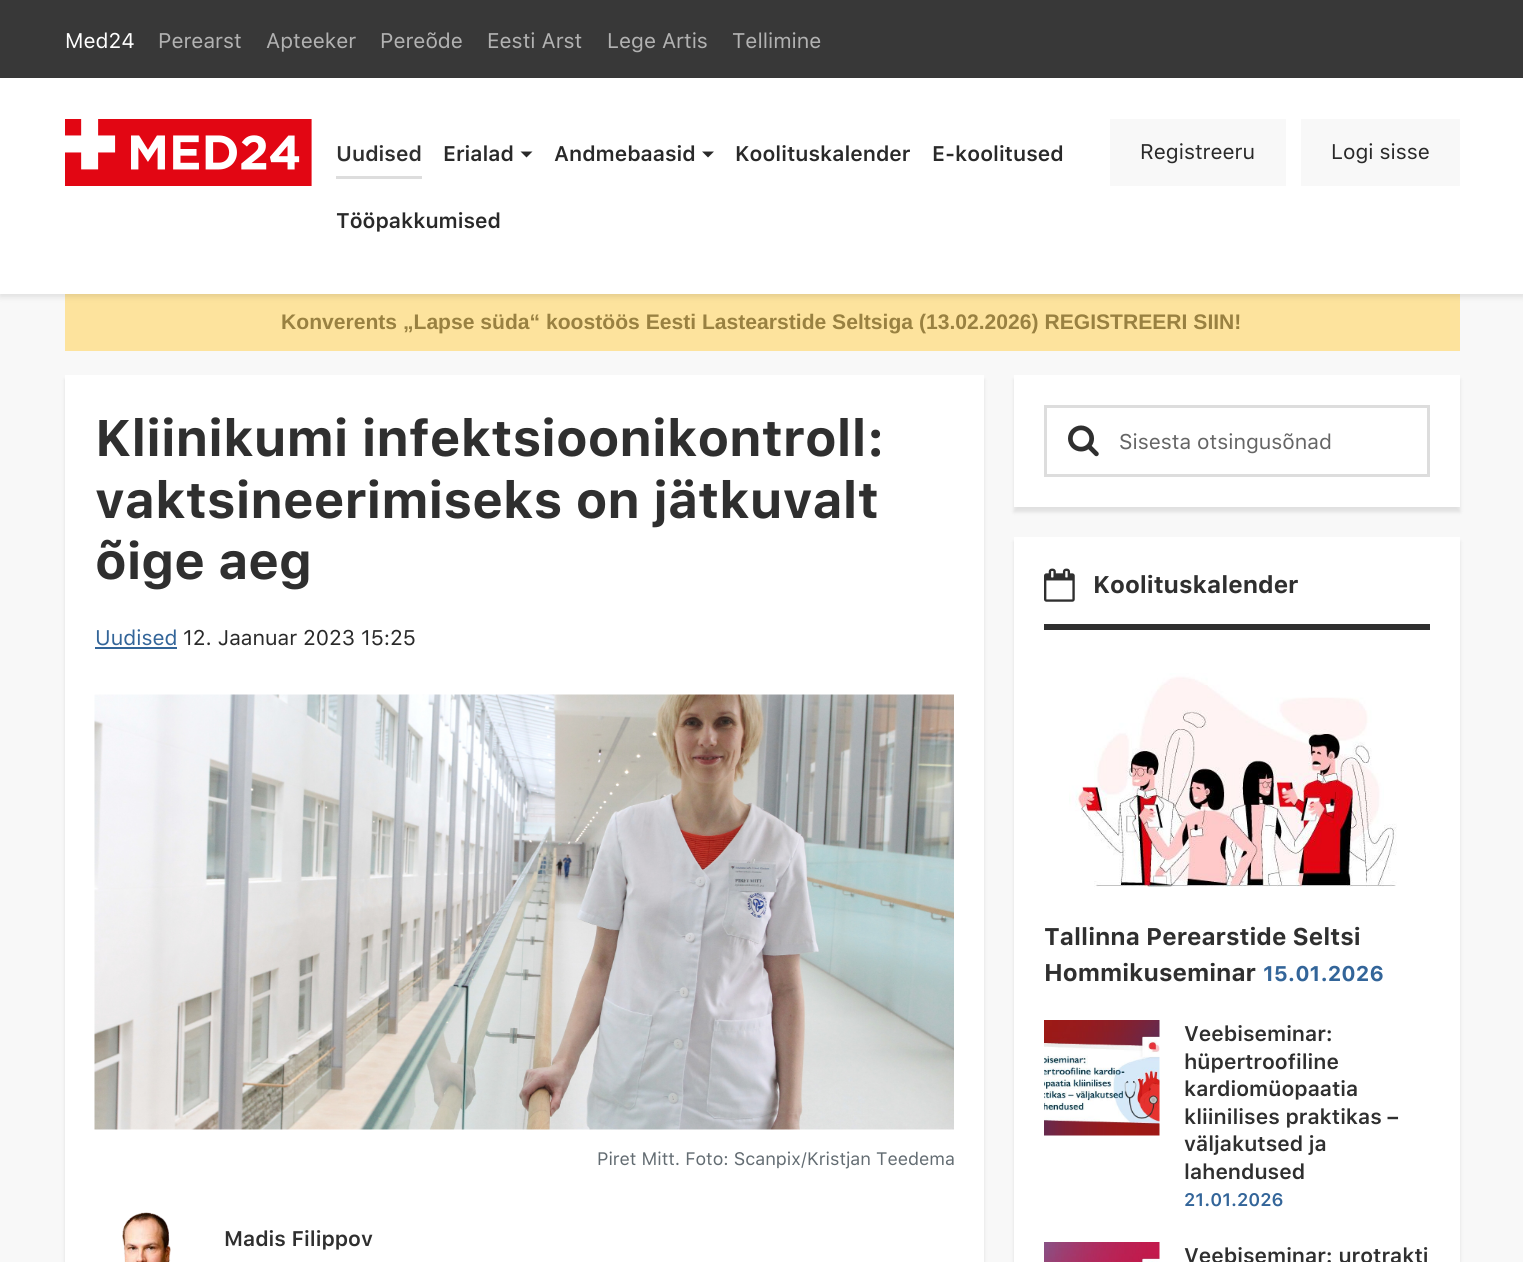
#include <cairo.h>
#include <math.h>
#include <stddef.h>


static void round_rect(cairo_t *cr, double x, double y, double w, double h, double r) {
    cairo_new_sub_path(cr);
    cairo_arc(cr, x + w - r, y + h - r, r, 0, M_PI / 2);
    cairo_arc(cr, x + r, y + h - r, r, M_PI / 2, M_PI);
    cairo_arc(cr, x + r, y + r, r, M_PI, 1.5 * M_PI);
    cairo_arc(cr, x + w - r, y + r, r, 1.5 * M_PI, 2 * M_PI);
    cairo_close_path(cr);
}

static void shadow(cairo_t *cr, double x, double y, double w, double h, double r, double blur, double alpha) {
    cairo_push_group_with_content(cr, CAIRO_CONTENT_ALPHA);
    cairo_set_operator(cr, CAIRO_OPERATOR_SOURCE);
    for (int i = 15; i >= -15 && fmin(w, h) + blur * i / 3 > 0; i -= 2) {
        double e = blur * i / 6;
        cairo_set_source_rgba(cr, 0, 0, 0, alpha * erfc((i - 1) / 8.5) / 2);
        round_rect(cr, x - e, y - e, w + 2 * e, h + 2 * e, fmax(0, fmin(r + e + blur * .6, fmin(w, h) / 2 + e)));
        cairo_fill(cr);
    }
    cairo_pattern_t *soft = cairo_pop_group(cr);
    cairo_mask(cr, soft);
    cairo_pattern_destroy(soft);
}

static void picture(cairo_t *cr, const char *path, double x, double y, double w, double h) {
    cairo_surface_t *image = cairo_image_surface_create_from_png(path);
    cairo_save(cr);
    cairo_set_source_surface(cr, image, x, y);
    cairo_rectangle(cr, x, y, w, h);
    cairo_fill(cr);
    cairo_restore(cr);
    cairo_surface_destroy(image);
}

int main(void) {
    cairo_surface_t *surface = cairo_image_surface_create(CAIRO_FORMAT_RGB24, 1523, 1262);
    cairo_t *cr = cairo_create(surface);
    cairo_font_options_t *options = cairo_font_options_create();
    cairo_font_options_set_hint_metrics(options, CAIRO_HINT_METRICS_OFF);
    cairo_font_options_set_hint_style(options, CAIRO_HINT_STYLE_NONE);
    cairo_set_font_options(cr, options);
    cairo_set_miter_limit(cr, 4);
    cairo_set_source_rgb(cr, 0.969, 0.969, 0.969);
    cairo_paint(cr);
    cairo_set_source_rgb(cr, 0.22, 0.22, 0.22);
    cairo_rectangle(cr, 0, 0, 1523, 78);
    cairo_fill(cr);
    cairo_select_font_face(cr, "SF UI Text", CAIRO_FONT_SLANT_NORMAL, CAIRO_FONT_WEIGHT_NORMAL);
    cairo_set_font_size(cr, 21.1);
    cairo_set_source_rgb(cr, 1, 1, 1);
    cairo_move_to(cr, 65, 48);
    cairo_show_text(cr, "Med24");
    cairo_set_source_rgb(cr, 0.698, 0.698, 0.698);
    cairo_move_to(cr, 158, 48);
    cairo_show_text(cr, "Perearst");
    cairo_move_to(cr, 266, 48);
    cairo_show_text(cr, "Apteeker");
    cairo_move_to(cr, 380, 48);
    cairo_show_text(cr, "Pereõde");
    cairo_move_to(cr, 487, 48);
    cairo_show_text(cr, "Eesti Arst");
    cairo_move_to(cr, 607, 48);
    cairo_show_text(cr, "Lege Artis");
    cairo_move_to(cr, 732, 48);
    cairo_show_text(cr, "Tellimine");
    cairo_set_source_rgb(cr, 0.992, 0.89, 0.616);
    cairo_rectangle(cr, 65, 294, 1395, 57);
    cairo_fill(cr);
    cairo_set_source_rgb(cr, 0, 0, 0);
    shadow(cr, 0, 81, 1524, 216, 0, 3, 0.1);
    cairo_set_source_rgb(cr, 1, 1, 1);
    cairo_rectangle(cr, 0, 78, 1523, 216);
    cairo_fill(cr);
    picture(cr, "img1.png", 65, 119, 247, 67);
    cairo_select_font_face(cr, "SF UI Text SemiBold", CAIRO_FONT_SLANT_NORMAL, CAIRO_FONT_WEIGHT_NORMAL);
    cairo_set_source_rgb(cr, 0.184, 0.184, 0.184);
    cairo_move_to(cr, 336, 161);
    cairo_show_text(cr, "Uudised");
    cairo_set_source_rgb(cr, 0.867, 0.867, 0.867);
    cairo_rectangle(cr, 336, 176, 86, 3);
    cairo_fill(cr);
    cairo_set_source_rgb(cr, 0.161, 0.161, 0.161);
    cairo_move_to(cr, 443, 161);
    cairo_show_text(cr, "Erialad");
    cairo_new_path(cr);
    cairo_move_to(cr, 520.5, 151.5);
    cairo_line_to(cr, 532.5, 151.5);
    cairo_line_to(cr, 526.5, 157.5);
    cairo_close_path(cr);
    cairo_fill(cr);
    cairo_move_to(cr, 554, 161);
    cairo_show_text(cr, "Andmebaasid");
    cairo_new_path(cr);
    cairo_move_to(cr, 702, 151.5);
    cairo_line_to(cr, 714, 151.5);
    cairo_line_to(cr, 708, 157.5);
    cairo_close_path(cr);
    cairo_fill(cr);
    cairo_move_to(cr, 735, 161);
    cairo_show_text(cr, "Koolituskalender");
    cairo_move_to(cr, 932, 161);
    cairo_show_text(cr, "E-koolitused");
    cairo_move_to(cr, 336, 228);
    cairo_show_text(cr, "Tööpakkumised");
    cairo_set_source_rgb(cr, 0.969, 0.969, 0.969);
    cairo_rectangle(cr, 1110, 119, 176, 67);
    cairo_fill(cr);
    cairo_select_font_face(cr, "SF UI Text", CAIRO_FONT_SLANT_NORMAL, CAIRO_FONT_WEIGHT_NORMAL);
    cairo_set_source_rgb(cr, 0.161, 0.161, 0.161);
    cairo_move_to(cr, 1140, 159);
    cairo_show_text(cr, "Registreeru");
    cairo_set_source_rgb(cr, 0.969, 0.969, 0.969);
    cairo_rectangle(cr, 1301, 119, 159, 67);
    cairo_fill(cr);
    cairo_set_source_rgb(cr, 0.161, 0.161, 0.161);
    cairo_move_to(cr, 1331, 159);
    cairo_show_text(cr, "Logi sisse");
    cairo_select_font_face(cr, "Liberation Sans", CAIRO_FONT_SLANT_NORMAL, CAIRO_FONT_WEIGHT_BOLD);
    cairo_set_source_rgb(cr, 0.6, 0.506, 0.255);
    cairo_move_to(cr, 281, 329);
    cairo_show_text(cr, "Konverents „Lapse süda“ koostöös Eesti Lastearstide Seltsiga (13.02.2026) REGISTREERI SIIN!");
    cairo_set_source_rgb(cr, 0, 0, 0);
    shadow(cr, 65, 380, 919, 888, 0, 2, 0.1);
    cairo_set_source_rgb(cr, 1, 1, 1);
    cairo_rectangle(cr, 65, 375, 919, 887);
    cairo_fill(cr);
    cairo_select_font_face(cr, "SF UI Text", CAIRO_FONT_SLANT_NORMAL, CAIRO_FONT_WEIGHT_BOLD);
    cairo_set_font_size(cr, 51.1);
    cairo_set_source_rgb(cr, 0.184, 0.184, 0.184);
    cairo_move_to(cr, 95, 456);
    cairo_show_text(cr, "Kliinikumi infektsioonikontroll:");
    cairo_move_to(cr, 95, 518);
    cairo_show_text(cr, "vaktsineerimiseks on jätkuvalt");
    cairo_move_to(cr, 95, 579);
    cairo_show_text(cr, "õige aeg");
    cairo_select_font_face(cr, "SF UI Text", CAIRO_FONT_SLANT_NORMAL, CAIRO_FONT_WEIGHT_NORMAL);
    cairo_set_font_size(cr, 21.1);
    cairo_set_source_rgb(cr, 0.2, 0.396, 0.6);
    cairo_move_to(cr, 95, 645);
    cairo_show_text(cr, "Uudised");
    cairo_rectangle(cr, 95, 647, 82, 2);
    cairo_fill(cr);
    cairo_set_source_rgb(cr, 0.161, 0.161, 0.161);
    cairo_move_to(cr, 183, 645);
    cairo_show_text(cr, "12. Jaanuar 2023 15:25");
    picture(cr, "img2.png", 94, 694, 860, 436);
    cairo_set_font_size(cr, 18);
    cairo_set_source_rgb(cr, 0.388, 0.424, 0.447);
    cairo_move_to(cr, 597, 1165);
    cairo_show_text(cr, "Piret Mitt. Foto: Scanpix/Kristjan Teedema");
    picture(cr, "img3.png", 122, 1212, 49, 50);
    cairo_select_font_face(cr, "SF UI Text SemiBold", CAIRO_FONT_SLANT_NORMAL, CAIRO_FONT_WEIGHT_NORMAL);
    cairo_set_font_size(cr, 21.1);
    cairo_set_source_rgb(cr, 0.184, 0.184, 0.184);
    cairo_move_to(cr, 224, 1246);
    cairo_show_text(cr, "Madis Filippov");
    cairo_set_source_rgb(cr, 0, 0, 0);
    shadow(cr, 1014, 380, 446, 132, 0, 2, 0.1);
    cairo_set_source_rgb(cr, 1, 1, 1);
    cairo_rectangle(cr, 1014, 375, 446, 132);
    cairo_fill(cr);
    cairo_rectangle(cr, 1045.5, 406.5, 383, 69);
    cairo_set_source_rgb(cr, 0.867, 0.867, 0.867);
    cairo_set_line_width(cr, 3);
    cairo_stroke(cr);
    picture(cr, "img4.png", 1068, 425, 31, 32);
    cairo_select_font_face(cr, "SF UI Text", CAIRO_FONT_SLANT_NORMAL, CAIRO_FONT_WEIGHT_NORMAL);
    cairo_set_source_rgb(cr, 0.396, 0.396, 0.396);
    cairo_move_to(cr, 1119, 449);
    cairo_show_text(cr, "Sisesta otsingusõnad");
    cairo_set_source_rgb(cr, 0, 0, 0);
    shadow(cr, 1014, 542, 446, 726, 0, 2, 0.1);
    cairo_set_source_rgb(cr, 1, 1, 1);
    cairo_rectangle(cr, 1014, 537, 446, 725);
    cairo_fill(cr);
    cairo_set_source_rgb(cr, 0.184, 0.184, 0.184);
    cairo_rectangle(cr, 1044, 624, 386, 6);
    cairo_fill(cr);
    picture(cr, "img5.png", 1044, 568, 31, 34);
    cairo_select_font_face(cr, "SF UI Text", CAIRO_FONT_SLANT_NORMAL, CAIRO_FONT_WEIGHT_BOLD);
    cairo_set_font_size(cr, 24);
    cairo_move_to(cr, 1093, 593);
    cairo_show_text(cr, "Koolituskalender");
    picture(cr, "img6.png", 1069, 673, 328, 214);
    cairo_move_to(cr, 1044, 945);
    cairo_show_text(cr, "Tallinna Perearstide Seltsi");
    cairo_move_to(cr, 1044, 981);
    cairo_show_text(cr, "Hommikuseminar");
    cairo_set_font_size(cr, 21.1);
    cairo_set_source_rgb(cr, 0.2, 0.396, 0.6);
    cairo_move_to(cr, 1263, 981);
    cairo_show_text(cr, "15.01.2026");
    picture(cr, "img7.png", 1044, 1020, 116, 116);
    cairo_select_font_face(cr, "SF UI Text SemiBold", CAIRO_FONT_SLANT_NORMAL, CAIRO_FONT_WEIGHT_NORMAL);
    cairo_set_source_rgb(cr, 0.184, 0.184, 0.184);
    cairo_move_to(cr, 1184, 1041);
    cairo_show_text(cr, "Veebiseminar:");
    cairo_move_to(cr, 1184, 1069);
    cairo_show_text(cr, "hüpertroofiline");
    cairo_move_to(cr, 1184, 1096);
    cairo_show_text(cr, "kardiomüopaatia");
    cairo_move_to(cr, 1184, 1124);
    cairo_show_text(cr, "kliinilises praktikas –");
    cairo_move_to(cr, 1184, 1151);
    cairo_show_text(cr, "väljakutsed ja");
    cairo_move_to(cr, 1184, 1179);
    cairo_show_text(cr, "lahendused");
    cairo_set_font_size(cr, 18);
    cairo_set_source_rgb(cr, 0.2, 0.396, 0.6);
    cairo_move_to(cr, 1184, 1206);
    cairo_show_text(cr, "21.01.2026");
    picture(cr, "img8.png", 1044, 1242, 116, 20);
    cairo_set_font_size(cr, 21.1);
    cairo_set_source_rgb(cr, 0.184, 0.184, 0.184);
    cairo_move_to(cr, 1184, 1263);
    cairo_show_text(cr, "Veebiseminar: urotrakti");
    cairo_surface_write_to_png(surface, "page.png");
    cairo_font_options_destroy(options);
    cairo_destroy(cr);
    cairo_surface_destroy(surface);
    return 0;
}
